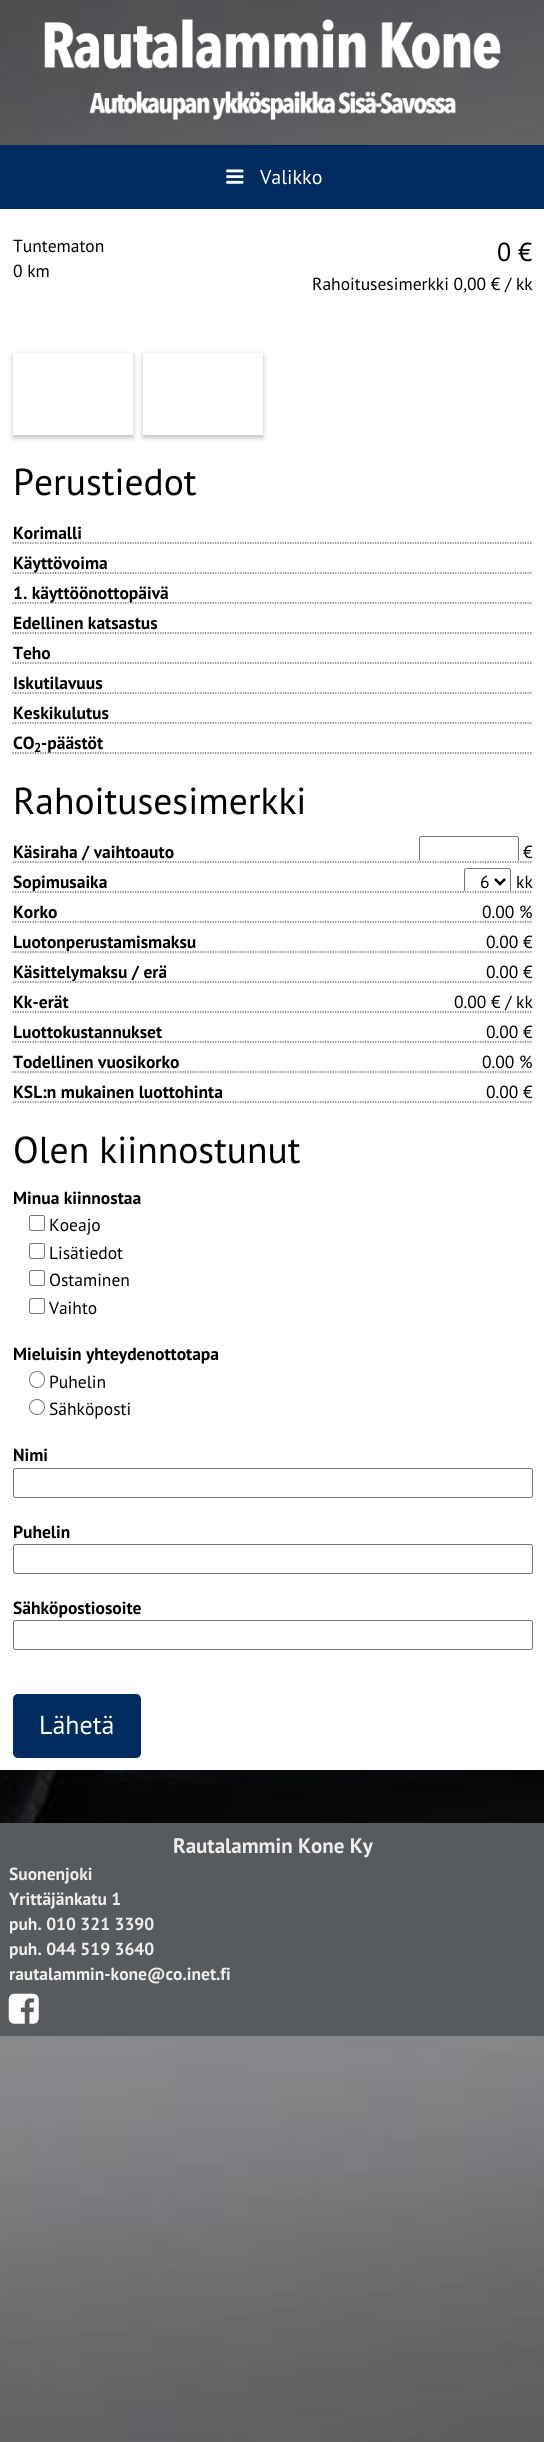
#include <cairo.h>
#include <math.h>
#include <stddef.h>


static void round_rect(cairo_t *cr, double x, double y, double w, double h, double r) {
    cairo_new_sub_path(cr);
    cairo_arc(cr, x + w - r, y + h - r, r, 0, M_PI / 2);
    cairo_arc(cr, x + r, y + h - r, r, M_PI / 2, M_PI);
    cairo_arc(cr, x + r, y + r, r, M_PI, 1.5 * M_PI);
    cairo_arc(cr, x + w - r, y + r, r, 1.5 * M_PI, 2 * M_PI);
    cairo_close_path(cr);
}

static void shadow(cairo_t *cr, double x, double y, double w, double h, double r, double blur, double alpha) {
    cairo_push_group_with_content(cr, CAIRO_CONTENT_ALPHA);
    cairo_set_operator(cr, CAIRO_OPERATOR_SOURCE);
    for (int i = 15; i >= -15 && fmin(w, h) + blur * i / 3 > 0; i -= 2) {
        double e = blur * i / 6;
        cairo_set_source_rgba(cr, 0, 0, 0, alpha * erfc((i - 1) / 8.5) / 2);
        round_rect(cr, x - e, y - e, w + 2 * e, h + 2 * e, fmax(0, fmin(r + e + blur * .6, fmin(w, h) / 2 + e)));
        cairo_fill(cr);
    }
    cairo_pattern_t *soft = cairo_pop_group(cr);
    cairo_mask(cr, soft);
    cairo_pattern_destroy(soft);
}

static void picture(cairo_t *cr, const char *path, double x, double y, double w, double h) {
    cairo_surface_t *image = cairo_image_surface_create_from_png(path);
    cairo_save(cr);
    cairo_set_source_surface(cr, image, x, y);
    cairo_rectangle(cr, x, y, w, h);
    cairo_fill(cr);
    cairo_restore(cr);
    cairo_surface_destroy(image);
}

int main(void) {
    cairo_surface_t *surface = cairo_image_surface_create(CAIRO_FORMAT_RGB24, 544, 2442);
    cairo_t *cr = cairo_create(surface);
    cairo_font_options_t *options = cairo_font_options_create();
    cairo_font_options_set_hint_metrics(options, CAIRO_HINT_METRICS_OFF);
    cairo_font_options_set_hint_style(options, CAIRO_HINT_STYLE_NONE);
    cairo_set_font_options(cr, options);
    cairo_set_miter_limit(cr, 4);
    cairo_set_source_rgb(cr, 1, 1, 1);
    cairo_paint(cr);
    picture(cr, "img1.png", 0, 0, 544, 2442);
    picture(cr, "img2.png", 44, 18, 457, 103);
    cairo_set_source_rgb(cr, 0, 0.173, 0.373);
    cairo_rectangle(cr, 0, 145, 544, 64);
    cairo_fill(cr);
    picture(cr, "img3.png", 226, 169, 18, 15);
    cairo_select_font_face(cr, "PT Sans", CAIRO_FONT_SLANT_NORMAL, CAIRO_FONT_WEIGHT_NORMAL);
    cairo_set_font_size(cr, 20);
    cairo_set_source_rgb(cr, 1, 1, 1);
    cairo_move_to(cr, 260, 184);
    cairo_show_text(cr, "Valikko");
    cairo_rectangle(cr, 0, 209, 544, 1561);
    cairo_fill(cr);
    cairo_set_font_size(cr, 17.5);
    cairo_set_source_rgb(cr, 0, 0, 0);
    cairo_move_to(cr, 13, 252);
    cairo_show_text(cr, "Tuntematon");
    cairo_move_to(cr, 13, 277);
    cairo_show_text(cr, "0 km");
    cairo_set_font_size(cr, 26);
    cairo_move_to(cr, 497, 261);
    cairo_show_text(cr, "0 €");
    cairo_set_font_size(cr, 17.5);
    cairo_move_to(cr, 312, 290);
    cairo_show_text(cr, "Rahoitusesimerkki 0,00 € / kk");
    cairo_save(cr);
    cairo_set_fill_rule(cr, CAIRO_FILL_RULE_EVEN_ODD);
    cairo_new_path(cr);
    cairo_move_to(cr, 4, 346);
    cairo_line_to(cr, 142, 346);
    cairo_line_to(cr, 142, 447);
    cairo_line_to(cr, 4, 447);
    cairo_close_path(cr);
    cairo_move_to(cr, 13, 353);
    cairo_line_to(cr, 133, 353);
    cairo_line_to(cr, 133, 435);
    cairo_line_to(cr, 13, 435);
    cairo_close_path(cr);
    cairo_clip(cr);
    cairo_set_source_rgb(cr, 0.392, 0.392, 0.392);
    shadow(cr, 13, 355, 120, 83, 0, 2.5, 0.4);
    cairo_restore(cr);
    cairo_rectangle(cr, 14.5, 354.5, 117, 79);
    cairo_set_source_rgb(cr, 1, 1, 1);
    cairo_set_line_width(cr, 3);
    cairo_stroke(cr);
    cairo_save(cr);
    cairo_set_fill_rule(cr, CAIRO_FILL_RULE_EVEN_ODD);
    cairo_new_path(cr);
    cairo_move_to(cr, 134, 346);
    cairo_line_to(cr, 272, 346);
    cairo_line_to(cr, 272, 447);
    cairo_line_to(cr, 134, 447);
    cairo_close_path(cr);
    cairo_move_to(cr, 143, 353);
    cairo_line_to(cr, 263, 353);
    cairo_line_to(cr, 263, 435);
    cairo_line_to(cr, 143, 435);
    cairo_close_path(cr);
    cairo_clip(cr);
    cairo_set_source_rgb(cr, 0.392, 0.392, 0.392);
    shadow(cr, 143, 355, 120, 83, 0, 2.5, 0.4);
    cairo_restore(cr);
    cairo_rectangle(cr, 144.5, 354.5, 117, 79);
    cairo_stroke(cr);
    cairo_set_font_size(cr, 37.5);
    cairo_set_source_rgb(cr, 0, 0, 0);
    cairo_move_to(cr, 13, 495);
    cairo_show_text(cr, "Perustiedot");
    cairo_new_path(cr);
    cairo_move_to(cr, 12.5, 543);
    cairo_line_to(cr, 532.5, 543);
    cairo_set_source_rgb(cr, 0.302, 0.325, 0.373);
    cairo_set_line_width(cr, 1.2);
    cairo_set_dash(cr, (double[]){1.25, 1.25}, 2, 0);
    cairo_stroke(cr);
    cairo_select_font_face(cr, "PT Sans", CAIRO_FONT_SLANT_NORMAL, CAIRO_FONT_WEIGHT_BOLD);
    cairo_set_font_size(cr, 17.5);
    cairo_set_source_rgb(cr, 0, 0, 0);
    cairo_move_to(cr, 13, 539);
    cairo_show_text(cr, "Korimalli");
    cairo_new_path(cr);
    cairo_move_to(cr, 12.5, 573);
    cairo_line_to(cr, 532.5, 573);
    cairo_set_source_rgb(cr, 0.302, 0.325, 0.373);
    cairo_stroke(cr);
    cairo_set_source_rgb(cr, 0, 0, 0);
    cairo_move_to(cr, 13, 569);
    cairo_show_text(cr, "Käyttövoima");
    cairo_new_path(cr);
    cairo_move_to(cr, 12.5, 603);
    cairo_line_to(cr, 532.5, 603);
    cairo_set_source_rgb(cr, 0.302, 0.325, 0.373);
    cairo_stroke(cr);
    cairo_set_source_rgb(cr, 0, 0, 0);
    cairo_move_to(cr, 13, 599);
    cairo_show_text(cr, "1. käyttöönottopäivä");
    cairo_new_path(cr);
    cairo_move_to(cr, 12.5, 633);
    cairo_line_to(cr, 532.5, 633);
    cairo_set_source_rgb(cr, 0.302, 0.325, 0.373);
    cairo_stroke(cr);
    cairo_set_source_rgb(cr, 0, 0, 0);
    cairo_move_to(cr, 13, 629);
    cairo_show_text(cr, "Edellinen katsastus");
    cairo_new_path(cr);
    cairo_move_to(cr, 12.5, 663);
    cairo_line_to(cr, 532.5, 663);
    cairo_set_source_rgb(cr, 0.302, 0.325, 0.373);
    cairo_stroke(cr);
    cairo_save(cr);
    cairo_rectangle(cr, 13, 634, 520, 29);
    cairo_clip(cr);
    cairo_set_source_rgb(cr, 0, 0, 0);
    cairo_move_to(cr, 13, 659);
    cairo_show_text(cr, "Teho");
    cairo_restore(cr);
    cairo_new_path(cr);
    cairo_move_to(cr, 12.5, 693);
    cairo_line_to(cr, 532.5, 693);
    cairo_stroke(cr);
    cairo_set_source_rgb(cr, 0, 0, 0);
    cairo_move_to(cr, 13, 689);
    cairo_show_text(cr, "Iskutilavuus");
    cairo_new_path(cr);
    cairo_move_to(cr, 12.5, 723);
    cairo_line_to(cr, 532.5, 723);
    cairo_set_source_rgb(cr, 0.302, 0.325, 0.373);
    cairo_stroke(cr);
    cairo_set_source_rgb(cr, 0, 0, 0);
    cairo_move_to(cr, 13, 719);
    cairo_show_text(cr, "Keskikulutus");
    cairo_new_path(cr);
    cairo_move_to(cr, 12.5, 753);
    cairo_line_to(cr, 532.5, 753);
    cairo_set_source_rgb(cr, 0.302, 0.325, 0.373);
    cairo_stroke(cr);
    cairo_set_source_rgb(cr, 0, 0, 0);
    cairo_move_to(cr, 13, 749);
    cairo_show_text(cr, "CO");
    cairo_set_font_size(cr, 13);
    cairo_move_to(cr, 34, 752);
    cairo_show_text(cr, "2");
    cairo_set_font_size(cr, 17.5);
    cairo_move_to(cr, 41, 749);
    cairo_show_text(cr, "-päästöt");
    cairo_select_font_face(cr, "PT Sans", CAIRO_FONT_SLANT_NORMAL, CAIRO_FONT_WEIGHT_NORMAL);
    cairo_set_font_size(cr, 37.5);
    cairo_move_to(cr, 13, 814);
    cairo_show_text(cr, "Rahoitusesimerkki");
    cairo_new_path(cr);
    cairo_move_to(cr, 12.5, 862);
    cairo_line_to(cr, 532.5, 862);
    cairo_set_source_rgb(cr, 0.302, 0.325, 0.373);
    cairo_stroke(cr);
    cairo_select_font_face(cr, "PT Sans", CAIRO_FONT_SLANT_NORMAL, CAIRO_FONT_WEIGHT_BOLD);
    cairo_set_font_size(cr, 17.5);
    cairo_set_source_rgb(cr, 0, 0, 0);
    cairo_move_to(cr, 13, 858);
    cairo_show_text(cr, "Käsiraha / vaihtoauto");
    cairo_save(cr);
    cairo_rectangle(cr, 13, 833, 520, 28);
    cairo_clip(cr);
    round_rect(cr, 419.5, 836.5, 99, 29, 2);
    cairo_set_source_rgb(cr, 0.463, 0.463, 0.463);
    cairo_set_line_width(cr, 1);
    cairo_set_dash(cr, NULL, 0, 0);
    cairo_stroke(cr);
    cairo_restore(cr);
    cairo_select_font_face(cr, "PT Sans", CAIRO_FONT_SLANT_NORMAL, CAIRO_FONT_WEIGHT_NORMAL);
    cairo_move_to(cr, 523, 858);
    cairo_show_text(cr, "€");
    cairo_new_path(cr);
    cairo_move_to(cr, 12.5, 892);
    cairo_line_to(cr, 532.5, 892);
    cairo_set_source_rgb(cr, 0.302, 0.325, 0.373);
    cairo_stroke(cr);
    cairo_save(cr);
    cairo_rectangle(cr, 13, 863, 520, 28);
    cairo_clip(cr);
    cairo_select_font_face(cr, "PT Sans", CAIRO_FONT_SLANT_NORMAL, CAIRO_FONT_WEIGHT_BOLD);
    cairo_set_source_rgb(cr, 0, 0, 0);
    cairo_move_to(cr, 13, 888);
    cairo_show_text(cr, "Sopimusaika");
    round_rect(cr, 464.5, 868.5, 46, 26, 2);
    cairo_set_source_rgb(cr, 0.463, 0.463, 0.463);
    cairo_set_line_width(cr, 1);
    cairo_set_dash(cr, NULL, 0, 0);
    cairo_stroke(cr);
    cairo_restore(cr);
    cairo_new_path(cr);
    cairo_move_to(cr, 495, 879);
    cairo_line_to(cr, 500, 884);
    cairo_line_to(cr, 505, 879);
    cairo_set_source_rgb(cr, 0, 0, 0);
    cairo_set_line_width(cr, 2.5);
    cairo_set_dash(cr, NULL, 0, 0);
    cairo_stroke(cr);
    cairo_move_to(cr, 480, 888);
    cairo_show_text(cr, "6");
    cairo_move_to(cr, 516, 888);
    cairo_show_text(cr, "kk");
    cairo_new_path(cr);
    cairo_move_to(cr, 12.5, 922);
    cairo_line_to(cr, 532.5, 922);
    cairo_set_source_rgb(cr, 0.302, 0.325, 0.373);
    cairo_set_line_width(cr, 1.2);
    cairo_set_dash(cr, (double[]){1.25, 1.25}, 2, 0);
    cairo_stroke(cr);
    cairo_select_font_face(cr, "PT Sans", CAIRO_FONT_SLANT_NORMAL, CAIRO_FONT_WEIGHT_BOLD);
    cairo_set_source_rgb(cr, 0, 0, 0);
    cairo_move_to(cr, 13, 918);
    cairo_show_text(cr, "Korko");
    cairo_select_font_face(cr, "PT Sans", CAIRO_FONT_SLANT_NORMAL, CAIRO_FONT_WEIGHT_NORMAL);
    cairo_move_to(cr, 482, 918);
    cairo_show_text(cr, "0.00 %");
    cairo_new_path(cr);
    cairo_move_to(cr, 12.5, 952);
    cairo_line_to(cr, 532.5, 952);
    cairo_set_source_rgb(cr, 0.302, 0.325, 0.373);
    cairo_stroke(cr);
    cairo_save(cr);
    cairo_rectangle(cr, 13, 923, 520, 28);
    cairo_clip(cr);
    cairo_select_font_face(cr, "PT Sans", CAIRO_FONT_SLANT_NORMAL, CAIRO_FONT_WEIGHT_BOLD);
    cairo_set_source_rgb(cr, 0, 0, 0);
    cairo_move_to(cr, 13, 948);
    cairo_show_text(cr, "Luotonperustamismaksu");
    cairo_restore(cr);
    cairo_set_source_rgb(cr, 0, 0, 0);
    cairo_move_to(cr, 486, 948);
    cairo_show_text(cr, "0.00 €");
    cairo_new_path(cr);
    cairo_move_to(cr, 12.5, 982);
    cairo_line_to(cr, 532.5, 982);
    cairo_set_source_rgb(cr, 0.302, 0.325, 0.373);
    cairo_stroke(cr);
    cairo_save(cr);
    cairo_rectangle(cr, 13, 953, 520, 28);
    cairo_clip(cr);
    cairo_select_font_face(cr, "PT Sans", CAIRO_FONT_SLANT_NORMAL, CAIRO_FONT_WEIGHT_BOLD);
    cairo_set_source_rgb(cr, 0, 0, 0);
    cairo_move_to(cr, 13, 978);
    cairo_show_text(cr, "Käsittelymaksu / erä");
    cairo_restore(cr);
    cairo_set_source_rgb(cr, 0, 0, 0);
    cairo_move_to(cr, 486, 978);
    cairo_show_text(cr, "0.00 €");
    cairo_new_path(cr);
    cairo_move_to(cr, 12.5, 1012);
    cairo_line_to(cr, 532.5, 1012);
    cairo_set_source_rgb(cr, 0.302, 0.325, 0.373);
    cairo_stroke(cr);
    cairo_select_font_face(cr, "PT Sans", CAIRO_FONT_SLANT_NORMAL, CAIRO_FONT_WEIGHT_BOLD);
    cairo_set_source_rgb(cr, 0, 0, 0);
    cairo_move_to(cr, 13, 1008);
    cairo_show_text(cr, "Kk-erät");
    cairo_select_font_face(cr, "PT Sans", CAIRO_FONT_SLANT_NORMAL, CAIRO_FONT_WEIGHT_NORMAL);
    cairo_move_to(cr, 454, 1008);
    cairo_show_text(cr, "0.00 € / kk");
    cairo_new_path(cr);
    cairo_move_to(cr, 12.5, 1042);
    cairo_line_to(cr, 532.5, 1042);
    cairo_set_source_rgb(cr, 0.302, 0.325, 0.373);
    cairo_stroke(cr);
    cairo_select_font_face(cr, "PT Sans", CAIRO_FONT_SLANT_NORMAL, CAIRO_FONT_WEIGHT_BOLD);
    cairo_set_source_rgb(cr, 0, 0, 0);
    cairo_move_to(cr, 13, 1038);
    cairo_show_text(cr, "Luottokustannukset");
    cairo_select_font_face(cr, "PT Sans", CAIRO_FONT_SLANT_NORMAL, CAIRO_FONT_WEIGHT_NORMAL);
    cairo_move_to(cr, 486, 1038);
    cairo_show_text(cr, "0.00 €");
    cairo_new_path(cr);
    cairo_move_to(cr, 12.5, 1072);
    cairo_line_to(cr, 532.5, 1072);
    cairo_set_source_rgb(cr, 0.302, 0.325, 0.373);
    cairo_stroke(cr);
    cairo_save(cr);
    cairo_rectangle(cr, 13, 1043, 520, 28);
    cairo_clip(cr);
    cairo_select_font_face(cr, "PT Sans", CAIRO_FONT_SLANT_NORMAL, CAIRO_FONT_WEIGHT_BOLD);
    cairo_set_source_rgb(cr, 0, 0, 0);
    cairo_move_to(cr, 13, 1068);
    cairo_show_text(cr, "Todellinen vuosikorko");
    cairo_restore(cr);
    cairo_set_source_rgb(cr, 0, 0, 0);
    cairo_move_to(cr, 482, 1068);
    cairo_show_text(cr, "0.00 %");
    cairo_new_path(cr);
    cairo_move_to(cr, 12.5, 1102);
    cairo_line_to(cr, 532.5, 1102);
    cairo_set_source_rgb(cr, 0.302, 0.325, 0.373);
    cairo_stroke(cr);
    cairo_select_font_face(cr, "PT Sans", CAIRO_FONT_SLANT_NORMAL, CAIRO_FONT_WEIGHT_BOLD);
    cairo_set_source_rgb(cr, 0, 0, 0);
    cairo_move_to(cr, 13, 1098);
    cairo_show_text(cr, "KSL:n mukainen luottohinta");
    cairo_select_font_face(cr, "PT Sans", CAIRO_FONT_SLANT_NORMAL, CAIRO_FONT_WEIGHT_NORMAL);
    cairo_move_to(cr, 486, 1098);
    cairo_show_text(cr, "0.00 €");
    cairo_set_font_size(cr, 37.5);
    cairo_move_to(cr, 13, 1163);
    cairo_show_text(cr, "Olen kiinnostunut");
    cairo_select_font_face(cr, "PT Sans", CAIRO_FONT_SLANT_NORMAL, CAIRO_FONT_WEIGHT_BOLD);
    cairo_set_font_size(cr, 17.5);
    cairo_move_to(cr, 13, 1204);
    cairo_show_text(cr, "Minua kiinnostaa");
    round_rect(cr, 29.5, 1215.5, 15, 15, 2);
    cairo_set_source_rgb(cr, 0.463, 0.463, 0.463);
    cairo_set_line_width(cr, 1);
    cairo_set_dash(cr, NULL, 0, 0);
    cairo_stroke(cr);
    cairo_select_font_face(cr, "PT Sans", CAIRO_FONT_SLANT_NORMAL, CAIRO_FONT_WEIGHT_NORMAL);
    cairo_set_source_rgb(cr, 0, 0, 0);
    cairo_move_to(cr, 49, 1231);
    cairo_show_text(cr, "Koeajo");
    round_rect(cr, 29.5, 1243.5, 15, 15, 2);
    cairo_set_source_rgb(cr, 0.463, 0.463, 0.463);
    cairo_stroke(cr);
    cairo_set_source_rgb(cr, 0, 0, 0);
    cairo_move_to(cr, 49, 1259);
    cairo_show_text(cr, "Lisätiedot");
    round_rect(cr, 29.5, 1270.5, 15, 15, 2);
    cairo_set_source_rgb(cr, 0.463, 0.463, 0.463);
    cairo_stroke(cr);
    cairo_set_source_rgb(cr, 0, 0, 0);
    cairo_move_to(cr, 49, 1286);
    cairo_show_text(cr, "Ostaminen");
    round_rect(cr, 29.5, 1298.5, 15, 15, 2);
    cairo_set_source_rgb(cr, 0.463, 0.463, 0.463);
    cairo_stroke(cr);
    cairo_set_source_rgb(cr, 0, 0, 0);
    cairo_move_to(cr, 49, 1314);
    cairo_show_text(cr, "Vaihto");
    cairo_select_font_face(cr, "PT Sans", CAIRO_FONT_SLANT_NORMAL, CAIRO_FONT_WEIGHT_BOLD);
    cairo_move_to(cr, 13, 1360);
    cairo_show_text(cr, "Mieluisin yhteydenottotapa");
    round_rect(cr, 29.5, 1371.5, 15, 16, 7.5);
    cairo_set_source_rgb(cr, 0.463, 0.463, 0.463);
    cairo_stroke(cr);
    cairo_select_font_face(cr, "PT Sans", CAIRO_FONT_SLANT_NORMAL, CAIRO_FONT_WEIGHT_NORMAL);
    cairo_set_source_rgb(cr, 0, 0, 0);
    cairo_move_to(cr, 49, 1388);
    cairo_show_text(cr, "Puhelin");
    cairo_new_path(cr);
    cairo_arc(cr, 37, 1407, 7.5, 0, 2 * M_PI);
    cairo_set_source_rgb(cr, 0.463, 0.463, 0.463);
    cairo_stroke(cr);
    cairo_set_source_rgb(cr, 0, 0, 0);
    cairo_move_to(cr, 49, 1415);
    cairo_show_text(cr, "Sähköposti");
    cairo_select_font_face(cr, "PT Sans", CAIRO_FONT_SLANT_NORMAL, CAIRO_FONT_WEIGHT_BOLD);
    cairo_move_to(cr, 13, 1461);
    cairo_show_text(cr, "Nimi");
    round_rect(cr, 13.5, 1468.5, 519, 29, 2);
    cairo_set_source_rgb(cr, 0.463, 0.463, 0.463);
    cairo_stroke(cr);
    cairo_set_source_rgb(cr, 0, 0, 0);
    cairo_move_to(cr, 13, 1538);
    cairo_show_text(cr, "Puhelin");
    round_rect(cr, 13.5, 1544.5, 519, 29, 2);
    cairo_set_source_rgb(cr, 0.463, 0.463, 0.463);
    cairo_stroke(cr);
    cairo_set_source_rgb(cr, 0, 0, 0);
    cairo_move_to(cr, 13, 1614);
    cairo_show_text(cr, "Sähköpostiosoite");
    round_rect(cr, 13.5, 1620.5, 519, 29, 2);
    cairo_set_source_rgb(cr, 0.463, 0.463, 0.463);
    cairo_stroke(cr);
    cairo_set_source_rgb(cr, 0, 0.173, 0.373);
    round_rect(cr, 13, 1694, 128, 64, 5);
    cairo_fill(cr);
    cairo_select_font_face(cr, "PT Sans", CAIRO_FONT_SLANT_NORMAL, CAIRO_FONT_WEIGHT_NORMAL);
    cairo_set_font_size(cr, 26);
    cairo_set_source_rgb(cr, 1, 1, 1);
    cairo_move_to(cr, 39, 1734);
    cairo_show_text(cr, "Lähetä");
    cairo_set_source_rgb(cr, 0.345, 0.357, 0.369);
    cairo_rectangle(cr, 0, 1823, 544, 213);
    cairo_fill(cr);
    cairo_select_font_face(cr, "PT Sans", CAIRO_FONT_SLANT_NORMAL, CAIRO_FONT_WEIGHT_BOLD);
    cairo_set_font_size(cr, 21);
    cairo_set_source_rgb(cr, 0.933, 0.933, 0.933);
    cairo_move_to(cr, 173, 1853);
    cairo_show_text(cr, "Rautalammin Kone Ky");
    cairo_set_font_size(cr, 17.5);
    cairo_move_to(cr, 9, 1880);
    cairo_show_text(cr, "Suonenjoki");
    cairo_move_to(cr, 9, 1905);
    cairo_show_text(cr, "Yrittäjänkatu 1");
    cairo_move_to(cr, 9, 1930);
    cairo_show_text(cr, "puh. 010 321 3390");
    cairo_move_to(cr, 9, 1955);
    cairo_show_text(cr, "puh. 044 519 3640");
    cairo_move_to(cr, 9, 1980);
    cairo_show_text(cr, "rautalammin-kone@co.inet.fi");
    picture(cr, "img4.png", 8, 1993, 31, 31);
    cairo_surface_write_to_png(surface, "page.png");
    cairo_font_options_destroy(options);
    cairo_destroy(cr);
    cairo_surface_destroy(surface);
    return 0;
}
